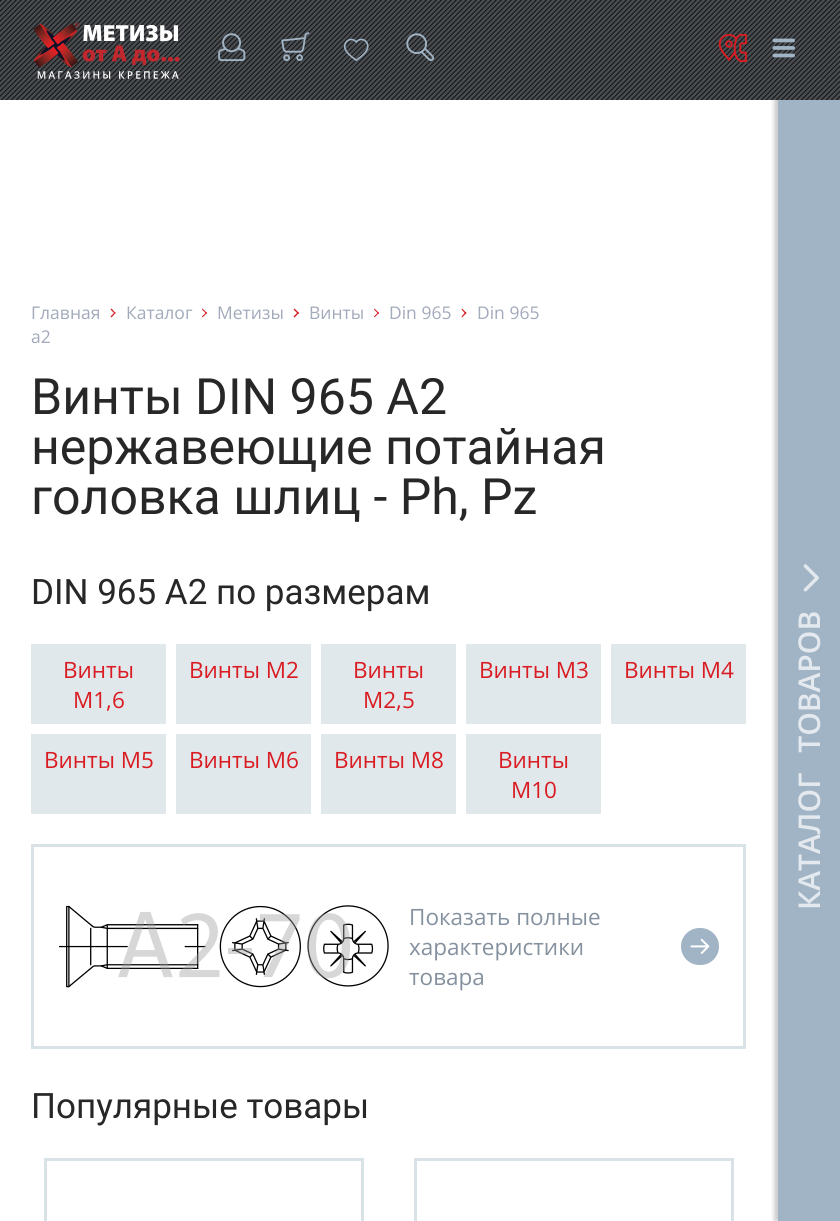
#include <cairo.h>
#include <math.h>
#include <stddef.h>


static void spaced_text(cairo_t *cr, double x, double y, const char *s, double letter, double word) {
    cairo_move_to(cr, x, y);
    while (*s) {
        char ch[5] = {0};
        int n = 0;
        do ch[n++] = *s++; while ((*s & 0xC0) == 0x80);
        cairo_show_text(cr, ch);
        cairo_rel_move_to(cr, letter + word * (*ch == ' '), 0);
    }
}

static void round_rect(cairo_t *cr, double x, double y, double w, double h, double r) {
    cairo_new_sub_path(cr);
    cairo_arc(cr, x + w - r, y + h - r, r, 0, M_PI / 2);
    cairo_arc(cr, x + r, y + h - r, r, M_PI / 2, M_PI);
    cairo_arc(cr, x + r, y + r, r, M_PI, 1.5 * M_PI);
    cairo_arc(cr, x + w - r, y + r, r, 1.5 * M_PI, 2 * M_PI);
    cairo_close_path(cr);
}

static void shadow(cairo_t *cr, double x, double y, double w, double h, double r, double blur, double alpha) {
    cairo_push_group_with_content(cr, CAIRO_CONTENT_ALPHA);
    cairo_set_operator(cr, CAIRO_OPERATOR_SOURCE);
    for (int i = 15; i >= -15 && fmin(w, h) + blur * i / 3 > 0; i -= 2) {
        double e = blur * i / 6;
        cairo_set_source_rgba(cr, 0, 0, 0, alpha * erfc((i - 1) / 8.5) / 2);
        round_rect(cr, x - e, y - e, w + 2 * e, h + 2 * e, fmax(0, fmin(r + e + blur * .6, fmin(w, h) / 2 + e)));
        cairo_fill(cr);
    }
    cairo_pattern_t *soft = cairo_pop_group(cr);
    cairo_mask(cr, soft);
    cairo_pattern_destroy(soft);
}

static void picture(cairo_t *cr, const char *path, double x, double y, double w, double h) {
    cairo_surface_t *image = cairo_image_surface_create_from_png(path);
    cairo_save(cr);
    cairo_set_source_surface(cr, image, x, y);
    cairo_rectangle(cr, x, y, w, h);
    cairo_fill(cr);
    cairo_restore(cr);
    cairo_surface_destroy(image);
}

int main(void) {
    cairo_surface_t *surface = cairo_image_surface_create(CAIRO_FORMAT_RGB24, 840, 1221);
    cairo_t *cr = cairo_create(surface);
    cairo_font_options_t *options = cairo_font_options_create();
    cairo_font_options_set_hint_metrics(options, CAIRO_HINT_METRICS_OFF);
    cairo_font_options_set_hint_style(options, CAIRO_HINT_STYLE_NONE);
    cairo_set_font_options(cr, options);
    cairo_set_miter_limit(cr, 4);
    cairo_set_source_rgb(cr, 1, 1, 1);
    cairo_paint(cr);
    cairo_set_source_rgb(cr, 0, 0, 0);
    shadow(cr, 774, 0, 62, 1221, 0, 2, 0.2);
    cairo_set_source_rgb(cr, 0.294, 0.31, 0.325);
    cairo_rectangle(cr, 0, 0, 840, 100);
    cairo_fill(cr);
    picture(cr, "img1.png", 0, 0, 840, 100);
    picture(cr, "img2.png", 33, 22, 147, 57);
    picture(cr, "img3.png", 218, 33, 28, 29);
    picture(cr, "img4.png", 281, 32, 29, 30);
    picture(cr, "img5.png", 343, 38, 26, 24);
    picture(cr, "img6.png", 406, 33, 29, 28);
    picture(cr, "img7.png", 718, 33, 29, 30);
    picture(cr, "img8.png", 772, 38, 23, 20);
    cairo_select_font_face(cr, "Open Sans", CAIRO_FONT_SLANT_NORMAL, CAIRO_FONT_WEIGHT_NORMAL);
    cairo_set_font_size(cr, 17.5);
    cairo_set_source_rgb(cr, 0.631, 0.663, 0.733);
    cairo_move_to(cr, 31, 319);
    cairo_show_text(cr, "Главная");
    cairo_set_source_rgb(cr, 0.851, 0.11, 0.133);
    cairo_new_path(cr);
    cairo_move_to(cr, 110.5, 309.5);
    cairo_line_to(cr, 111.5, 308.5);
    cairo_line_to(cr, 115.5, 313);
    cairo_line_to(cr, 115, 314);
    cairo_close_path(cr);
    cairo_fill(cr);
    cairo_new_path(cr);
    cairo_move_to(cr, 110.5, 316.5);
    cairo_line_to(cr, 115, 312);
    cairo_line_to(cr, 115.5, 313);
    cairo_line_to(cr, 111.5, 317.5);
    cairo_close_path(cr);
    cairo_fill(cr);
    cairo_set_source_rgb(cr, 0.631, 0.663, 0.733);
    cairo_move_to(cr, 126, 319);
    cairo_show_text(cr, "Каталог");
    cairo_set_source_rgb(cr, 0.851, 0.11, 0.133);
    cairo_new_path(cr);
    cairo_move_to(cr, 202, 309.5);
    cairo_line_to(cr, 202.5, 308.5);
    cairo_line_to(cr, 207, 313);
    cairo_line_to(cr, 206.5, 314);
    cairo_close_path(cr);
    cairo_fill(cr);
    cairo_new_path(cr);
    cairo_move_to(cr, 202, 316.5);
    cairo_line_to(cr, 206.5, 312);
    cairo_line_to(cr, 207, 313);
    cairo_line_to(cr, 202.5, 317.5);
    cairo_close_path(cr);
    cairo_fill(cr);
    cairo_set_source_rgb(cr, 0.631, 0.663, 0.733);
    cairo_move_to(cr, 217, 319);
    cairo_show_text(cr, "Метизы");
    cairo_set_source_rgb(cr, 0.851, 0.11, 0.133);
    cairo_new_path(cr);
    cairo_move_to(cr, 293.5, 309.5);
    cairo_line_to(cr, 294.5, 308.5);
    cairo_line_to(cr, 299, 313);
    cairo_line_to(cr, 298, 314);
    cairo_close_path(cr);
    cairo_fill(cr);
    cairo_new_path(cr);
    cairo_move_to(cr, 293.5, 316.5);
    cairo_line_to(cr, 298, 312);
    cairo_line_to(cr, 299, 313);
    cairo_line_to(cr, 294.5, 317.5);
    cairo_close_path(cr);
    cairo_fill(cr);
    cairo_set_source_rgb(cr, 0.631, 0.663, 0.733);
    cairo_move_to(cr, 309, 319);
    cairo_show_text(cr, "Винты");
    cairo_set_source_rgb(cr, 0.851, 0.11, 0.133);
    cairo_new_path(cr);
    cairo_move_to(cr, 374, 309.5);
    cairo_line_to(cr, 374.5, 308.5);
    cairo_line_to(cr, 379, 313);
    cairo_line_to(cr, 378.5, 314);
    cairo_close_path(cr);
    cairo_fill(cr);
    cairo_new_path(cr);
    cairo_move_to(cr, 374, 316.5);
    cairo_line_to(cr, 378.5, 312);
    cairo_line_to(cr, 379, 313);
    cairo_line_to(cr, 374.5, 317.5);
    cairo_close_path(cr);
    cairo_fill(cr);
    cairo_set_source_rgb(cr, 0.631, 0.663, 0.733);
    cairo_move_to(cr, 389, 319);
    cairo_show_text(cr, "Din 965");
    cairo_set_source_rgb(cr, 0.851, 0.11, 0.133);
    cairo_new_path(cr);
    cairo_move_to(cr, 461.5, 309.5);
    cairo_line_to(cr, 462, 308.5);
    cairo_line_to(cr, 466.5, 313);
    cairo_line_to(cr, 465.5, 314);
    cairo_close_path(cr);
    cairo_fill(cr);
    cairo_new_path(cr);
    cairo_move_to(cr, 461.5, 316.5);
    cairo_line_to(cr, 465.5, 312);
    cairo_line_to(cr, 466.5, 313);
    cairo_line_to(cr, 462, 317.5);
    cairo_close_path(cr);
    cairo_fill(cr);
    cairo_set_source_rgb(cr, 0.631, 0.663, 0.733);
    cairo_move_to(cr, 477, 319);
    cairo_show_text(cr, "Din 965");
    cairo_move_to(cr, 31, 343);
    cairo_show_text(cr, "а2");
    cairo_select_font_face(cr, "Roboto", CAIRO_FONT_SLANT_NORMAL, CAIRO_FONT_WEIGHT_NORMAL);
    cairo_set_font_size(cr, 50);
    cairo_set_source_rgb(cr, 0.153, 0.153, 0.153);
    cairo_move_to(cr, 31, 414);
    cairo_show_text(cr, "Винты DIN 965 A2");
    cairo_move_to(cr, 31, 464);
    cairo_show_text(cr, "нержавеющие потайная");
    cairo_move_to(cr, 31, 514);
    cairo_show_text(cr, "головка шлиц - Ph, Pz");
    cairo_set_font_size(cr, 35);
    cairo_move_to(cr, 31, 604);
    cairo_show_text(cr, "DIN 965 А2 по размерам");
    cairo_set_source_rgb(cr, 0.882, 0.91, 0.922);
    cairo_rectangle(cr, 31, 644, 135, 80);
    cairo_fill(cr);
    cairo_select_font_face(cr, "Open Sans", CAIRO_FONT_SLANT_NORMAL, CAIRO_FONT_WEIGHT_NORMAL);
    cairo_set_font_size(cr, 22.5);
    cairo_set_source_rgb(cr, 0.851, 0.11, 0.133);
    cairo_move_to(cr, 63, 678);
    cairo_show_text(cr, "Винты");
    cairo_move_to(cr, 73, 708);
    cairo_show_text(cr, "М1,6");
    cairo_set_source_rgb(cr, 0.882, 0.91, 0.922);
    cairo_rectangle(cr, 176, 644, 135, 80);
    cairo_fill(cr);
    cairo_set_source_rgb(cr, 0.851, 0.11, 0.133);
    cairo_move_to(cr, 189, 678);
    cairo_show_text(cr, "Винты М2");
    cairo_set_source_rgb(cr, 0.882, 0.91, 0.922);
    cairo_rectangle(cr, 321, 644, 135, 80);
    cairo_fill(cr);
    cairo_set_source_rgb(cr, 0.851, 0.11, 0.133);
    cairo_move_to(cr, 353, 678);
    cairo_show_text(cr, "Винты");
    cairo_move_to(cr, 363, 708);
    cairo_show_text(cr, "М2,5");
    cairo_set_source_rgb(cr, 0.882, 0.91, 0.922);
    cairo_rectangle(cr, 466, 644, 135, 80);
    cairo_fill(cr);
    cairo_set_source_rgb(cr, 0.851, 0.11, 0.133);
    cairo_move_to(cr, 479, 678);
    cairo_show_text(cr, "Винты М3");
    cairo_set_source_rgb(cr, 0.882, 0.91, 0.922);
    cairo_rectangle(cr, 611, 644, 135, 80);
    cairo_fill(cr);
    cairo_set_source_rgb(cr, 0.851, 0.11, 0.133);
    cairo_move_to(cr, 624, 678);
    cairo_show_text(cr, "Винты М4");
    cairo_set_source_rgb(cr, 0.882, 0.91, 0.922);
    cairo_rectangle(cr, 31, 734, 135, 80);
    cairo_fill(cr);
    cairo_set_source_rgb(cr, 0.851, 0.11, 0.133);
    cairo_move_to(cr, 44, 768);
    cairo_show_text(cr, "Винты М5");
    cairo_set_source_rgb(cr, 0.882, 0.91, 0.922);
    cairo_rectangle(cr, 176, 734, 135, 80);
    cairo_fill(cr);
    cairo_set_source_rgb(cr, 0.851, 0.11, 0.133);
    cairo_move_to(cr, 189, 768);
    cairo_show_text(cr, "Винты М6");
    cairo_set_source_rgb(cr, 0.882, 0.91, 0.922);
    cairo_rectangle(cr, 321, 734, 135, 80);
    cairo_fill(cr);
    cairo_set_source_rgb(cr, 0.851, 0.11, 0.133);
    cairo_move_to(cr, 334, 768);
    cairo_show_text(cr, "Винты М8");
    cairo_set_source_rgb(cr, 0.882, 0.91, 0.922);
    cairo_rectangle(cr, 466, 734, 135, 80);
    cairo_fill(cr);
    cairo_set_source_rgb(cr, 0.851, 0.11, 0.133);
    cairo_move_to(cr, 498, 768);
    cairo_show_text(cr, "Винты");
    cairo_move_to(cr, 511, 798);
    cairo_show_text(cr, "М10");
    cairo_rectangle(cr, 32.5, 845.5, 712, 202);
    cairo_set_source_rgb(cr, 0.851, 0.886, 0.902);
    cairo_set_line_width(cr, 3);
    cairo_stroke(cr);
    picture(cr, "img9.png", 59, 905, 330, 83);
    cairo_set_source_rgb(cr, 0.522, 0.569, 0.62);
    cairo_move_to(cr, 409, 925);
    cairo_show_text(cr, "Показать полные");
    cairo_move_to(cr, 409, 955);
    cairo_show_text(cr, "характеристики");
    cairo_move_to(cr, 409, 985);
    cairo_show_text(cr, "товара");
    cairo_set_source_rgb(cr, 0.631, 0.706, 0.773);
    round_rect(cr, 681, 928, 38, 37, 18.5);
    cairo_fill(cr);
    picture(cr, "img10.png", 690, 938, 20, 16);
    cairo_select_font_face(cr, "Roboto", CAIRO_FONT_SLANT_NORMAL, CAIRO_FONT_WEIGHT_NORMAL);
    cairo_set_font_size(cr, 35);
    cairo_set_source_rgb(cr, 0.153, 0.153, 0.153);
    cairo_move_to(cr, 31, 1118);
    cairo_show_text(cr, "Популярные товары");
    cairo_rectangle(cr, 45.5, 1159.5, 317, 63);
    cairo_set_source_rgb(cr, 0.851, 0.886, 0.902);
    cairo_stroke(cr);
    cairo_rectangle(cr, 415.5, 1159.5, 317, 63);
    cairo_stroke(cr);
    cairo_set_source_rgb(cr, 0.631, 0.706, 0.773);
    cairo_rectangle(cr, 778, 100, 62, 1121);
    cairo_fill(cr);
    picture(cr, "img11.png", 803, 564, 16, 28);
    cairo_select_font_face(cr, "Open Sans SemiBold", CAIRO_FONT_SLANT_NORMAL, CAIRO_FONT_WEIGHT_NORMAL);
    cairo_set_font_size(cr, 30);
    cairo_set_source_rgb(cr, 0.89, 0.914, 0.933);
    cairo_save(cr);
    cairo_translate(cr, 820, 910);
    cairo_rotate(cr, -90 * M_PI / 180);
    spaced_text(cr, 0, 0, "КАТАЛОГ ТОВАРОВ", 0, 12);
    cairo_restore(cr);
    cairo_surface_write_to_png(surface, "page.png");
    cairo_font_options_destroy(options);
    cairo_destroy(cr);
    cairo_surface_destroy(surface);
    return 0;
}
